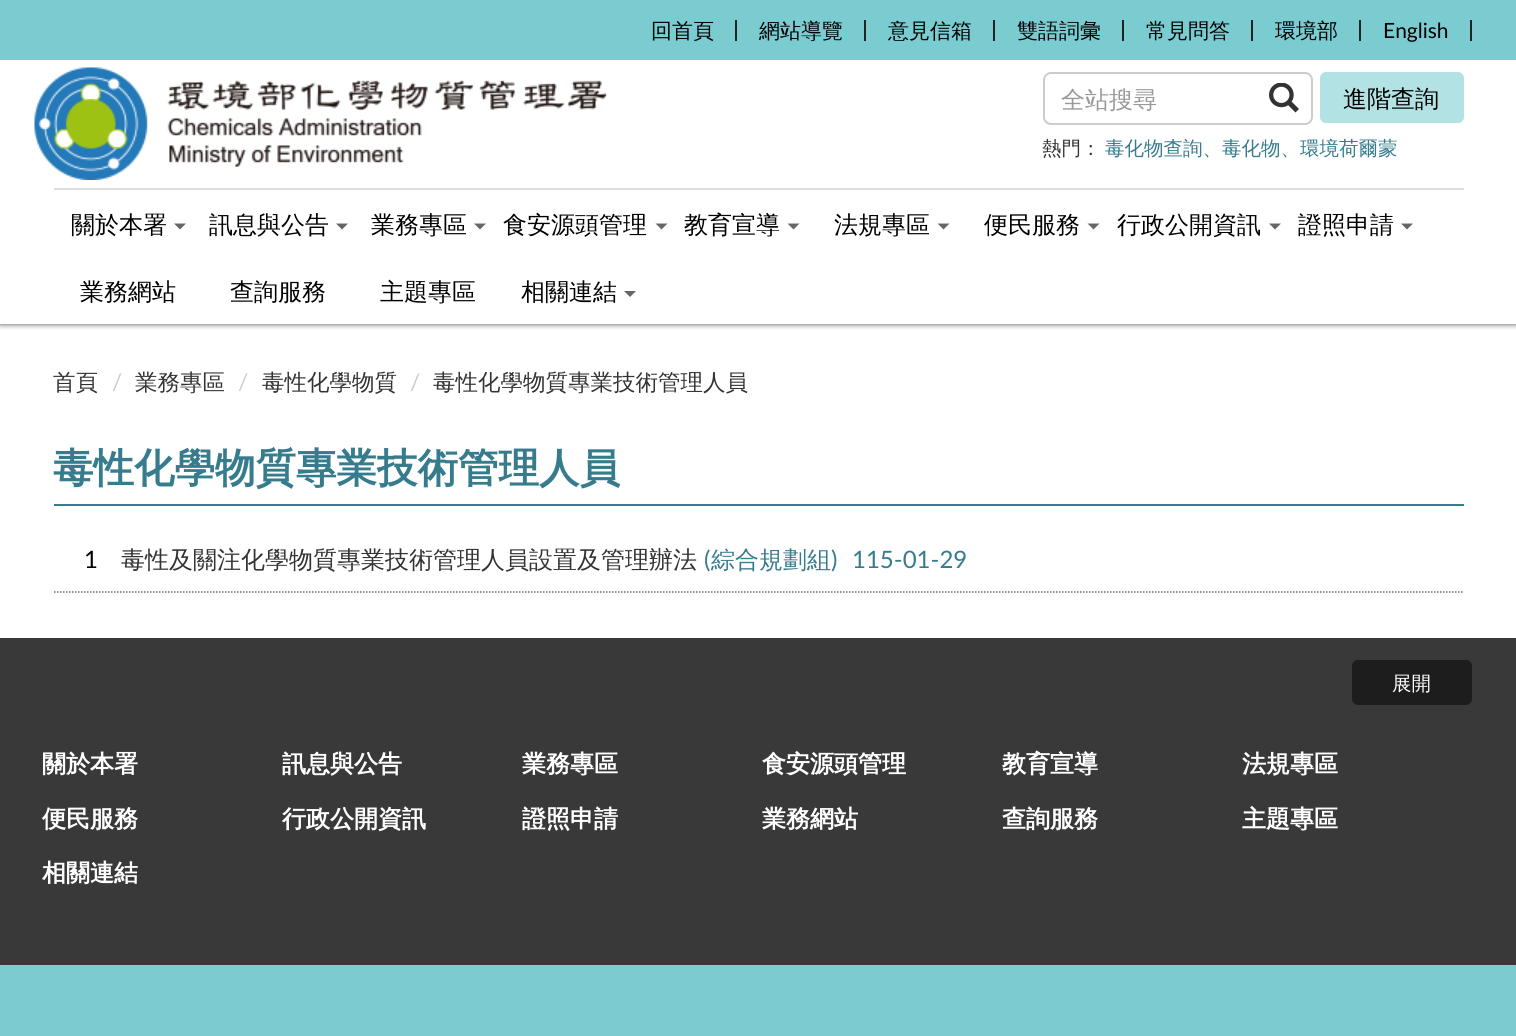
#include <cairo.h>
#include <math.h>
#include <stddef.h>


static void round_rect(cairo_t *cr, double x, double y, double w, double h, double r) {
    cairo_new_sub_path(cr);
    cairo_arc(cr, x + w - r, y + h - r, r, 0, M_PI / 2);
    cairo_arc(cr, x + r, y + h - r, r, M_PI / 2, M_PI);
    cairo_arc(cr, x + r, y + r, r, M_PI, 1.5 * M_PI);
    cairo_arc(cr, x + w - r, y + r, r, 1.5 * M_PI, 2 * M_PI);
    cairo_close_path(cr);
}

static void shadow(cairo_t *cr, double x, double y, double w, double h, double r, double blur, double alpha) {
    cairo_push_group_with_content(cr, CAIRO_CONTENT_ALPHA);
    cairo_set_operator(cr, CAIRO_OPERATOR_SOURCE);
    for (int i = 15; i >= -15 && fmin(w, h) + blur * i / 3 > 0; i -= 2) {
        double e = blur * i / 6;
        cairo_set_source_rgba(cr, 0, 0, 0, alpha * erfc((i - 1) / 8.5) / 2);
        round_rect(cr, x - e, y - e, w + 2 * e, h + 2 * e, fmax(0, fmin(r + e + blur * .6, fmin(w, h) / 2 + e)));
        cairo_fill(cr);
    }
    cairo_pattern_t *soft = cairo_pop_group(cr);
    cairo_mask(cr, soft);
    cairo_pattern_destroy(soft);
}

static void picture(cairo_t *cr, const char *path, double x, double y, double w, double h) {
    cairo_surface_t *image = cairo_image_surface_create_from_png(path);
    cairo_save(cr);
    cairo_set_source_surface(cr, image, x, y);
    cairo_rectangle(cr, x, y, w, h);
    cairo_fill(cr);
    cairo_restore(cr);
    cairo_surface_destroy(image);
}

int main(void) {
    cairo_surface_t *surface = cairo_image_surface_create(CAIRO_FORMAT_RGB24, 1516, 1036);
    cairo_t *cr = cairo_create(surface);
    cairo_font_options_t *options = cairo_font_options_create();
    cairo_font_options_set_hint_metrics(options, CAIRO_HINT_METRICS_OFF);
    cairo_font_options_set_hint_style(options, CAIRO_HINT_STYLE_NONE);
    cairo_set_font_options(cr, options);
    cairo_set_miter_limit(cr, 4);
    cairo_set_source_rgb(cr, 1, 1, 1);
    cairo_paint(cr);
    cairo_save(cr);
    cairo_rectangle(cr, 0, 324, 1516, 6);
    cairo_clip(cr);
    cairo_set_source_rgb(cr, 0, 0, 0);
    shadow(cr, 0, 0, 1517, 324, 0, 3, 0.7);
    cairo_restore(cr);
    cairo_set_source_rgb(cr, 0.478, 0.8, 0.82);
    cairo_rectangle(cr, 0, 0, 1516, 60);
    cairo_fill(cr);
    picture(cr, "img1.png", 34, 67, 573, 113);
    cairo_select_font_face(cr, "WenQuanYi Zen Hei Medium", CAIRO_FONT_SLANT_NORMAL, CAIRO_FONT_WEIGHT_NORMAL);
    cairo_set_font_size(cr, 21);
    cairo_set_source_rgb(cr, 0, 0, 0);
    cairo_move_to(cr, 651, 38);
    cairo_show_text(cr, "回首頁");
    cairo_set_source_rgb(cr, 0.133, 0.133, 0.133);
    cairo_rectangle(cr, 735, 20, 2, 21);
    cairo_fill(cr);
    cairo_set_source_rgb(cr, 0, 0, 0);
    cairo_move_to(cr, 759, 38);
    cairo_show_text(cr, "網站導覽");
    cairo_set_source_rgb(cr, 0.133, 0.133, 0.133);
    cairo_rectangle(cr, 864, 20, 2, 21);
    cairo_fill(cr);
    cairo_set_source_rgb(cr, 0, 0, 0);
    cairo_move_to(cr, 888, 38);
    cairo_show_text(cr, "意見信箱");
    cairo_set_source_rgb(cr, 0.133, 0.133, 0.133);
    cairo_rectangle(cr, 993, 20, 2, 21);
    cairo_fill(cr);
    cairo_set_source_rgb(cr, 0, 0, 0);
    cairo_move_to(cr, 1017, 38);
    cairo_show_text(cr, "雙語詞彙");
    cairo_set_source_rgb(cr, 0.133, 0.133, 0.133);
    cairo_rectangle(cr, 1122, 20, 2, 21);
    cairo_fill(cr);
    cairo_set_source_rgb(cr, 0, 0, 0);
    cairo_move_to(cr, 1146, 38);
    cairo_show_text(cr, "常見問答");
    cairo_set_source_rgb(cr, 0.133, 0.133, 0.133);
    cairo_rectangle(cr, 1251, 20, 2, 21);
    cairo_fill(cr);
    cairo_set_source_rgb(cr, 0, 0, 0);
    cairo_move_to(cr, 1275, 38);
    cairo_show_text(cr, "環境部");
    cairo_set_source_rgb(cr, 0.133, 0.133, 0.133);
    cairo_rectangle(cr, 1359, 20, 2, 21);
    cairo_fill(cr);
    cairo_select_font_face(cr, "Lato", CAIRO_FONT_SLANT_NORMAL, CAIRO_FONT_WEIGHT_NORMAL);
    cairo_set_source_rgb(cr, 0, 0, 0);
    cairo_move_to(cr, 1383, 38);
    cairo_show_text(cr, "English");
    cairo_set_source_rgb(cr, 0.133, 0.133, 0.133);
    cairo_rectangle(cr, 1470, 20, 2, 21);
    cairo_fill(cr);
    round_rect(cr, 1044, 73, 268, 51, 7);
    cairo_set_source_rgb(cr, 0.8, 0.8, 0.8);
    cairo_stroke(cr);
    cairo_select_font_face(cr, "WenQuanYi Zen Hei Medium", CAIRO_FONT_SLANT_NORMAL, CAIRO_FONT_WEIGHT_NORMAL);
    cairo_set_font_size(cr, 24);
    cairo_set_source_rgb(cr, 0.6, 0.6, 0.6);
    cairo_move_to(cr, 1061, 108);
    cairo_show_text(cr, "全站搜尋");
    picture(cr, "img2.png", 1269, 83, 30, 30);
    cairo_set_source_rgb(cr, 0.702, 0.886, 0.898);
    round_rect(cr, 1320, 72, 144, 51, 6);
    cairo_fill(cr);
    cairo_set_source_rgb(cr, 0, 0, 0);
    cairo_move_to(cr, 1343, 107);
    cairo_show_text(cr, "進階查詢");
    cairo_set_font_size(cr, 19.5);
    cairo_set_source_rgb(cr, 0.2, 0.2, 0.2);
    cairo_move_to(cr, 1042, 155);
    cairo_show_text(cr, "熱門：");
    cairo_set_source_rgb(cr, 0.212, 0.486, 0.553);
    cairo_move_to(cr, 1105, 155);
    cairo_show_text(cr, "毒化物查詢、毒化物、環境荷爾蒙");
    cairo_set_source_rgb(cr, 0.867, 0.867, 0.867);
    cairo_rectangle(cr, 54, 188, 1410, 2);
    cairo_fill(cr);
    cairo_set_font_size(cr, 24);
    cairo_set_source_rgb(cr, 0, 0, 0);
    cairo_move_to(cr, 71, 233);
    cairo_show_text(cr, "關於本署");
    cairo_set_source_rgb(cr, 0.4, 0.4, 0.4);
    cairo_new_path(cr);
    cairo_move_to(cr, 174, 223.5);
    cairo_line_to(cr, 186, 223.5);
    cairo_line_to(cr, 180, 229.5);
    cairo_close_path(cr);
    cairo_fill(cr);
    cairo_set_source_rgb(cr, 0, 0, 0);
    cairo_move_to(cr, 209, 233);
    cairo_show_text(cr, "訊息與公告");
    cairo_set_source_rgb(cr, 0.4, 0.4, 0.4);
    cairo_new_path(cr);
    cairo_move_to(cr, 336, 223.5);
    cairo_line_to(cr, 348, 223.5);
    cairo_line_to(cr, 342, 229.5);
    cairo_close_path(cr);
    cairo_fill(cr);
    cairo_set_source_rgb(cr, 0, 0, 0);
    cairo_move_to(cr, 371, 233);
    cairo_show_text(cr, "業務專區");
    cairo_set_source_rgb(cr, 0.4, 0.4, 0.4);
    cairo_new_path(cr);
    cairo_move_to(cr, 474, 223.5);
    cairo_line_to(cr, 486, 223.5);
    cairo_line_to(cr, 480, 229.5);
    cairo_close_path(cr);
    cairo_fill(cr);
    cairo_set_source_rgb(cr, 0, 0, 0);
    cairo_move_to(cr, 503, 233);
    cairo_show_text(cr, "食安源頭管理");
    cairo_set_source_rgb(cr, 0.4, 0.4, 0.4);
    cairo_new_path(cr);
    cairo_move_to(cr, 655.5, 223.5);
    cairo_line_to(cr, 667.5, 223.5);
    cairo_line_to(cr, 661.5, 229.5);
    cairo_close_path(cr);
    cairo_fill(cr);
    cairo_set_source_rgb(cr, 0, 0, 0);
    cairo_move_to(cr, 684, 233);
    cairo_show_text(cr, "教育宣導");
    cairo_set_source_rgb(cr, 0.4, 0.4, 0.4);
    cairo_new_path(cr);
    cairo_move_to(cr, 787.5, 223.5);
    cairo_line_to(cr, 799.5, 223.5);
    cairo_line_to(cr, 793.5, 229.5);
    cairo_close_path(cr);
    cairo_fill(cr);
    cairo_set_source_rgb(cr, 0, 0, 0);
    cairo_move_to(cr, 834, 233);
    cairo_show_text(cr, "法規專區");
    cairo_set_source_rgb(cr, 0.4, 0.4, 0.4);
    cairo_new_path(cr);
    cairo_move_to(cr, 937.5, 223.5);
    cairo_line_to(cr, 949.5, 223.5);
    cairo_line_to(cr, 943.5, 229.5);
    cairo_close_path(cr);
    cairo_fill(cr);
    cairo_set_source_rgb(cr, 0, 0, 0);
    cairo_move_to(cr, 984, 233);
    cairo_show_text(cr, "便民服務");
    cairo_set_source_rgb(cr, 0.4, 0.4, 0.4);
    cairo_new_path(cr);
    cairo_move_to(cr, 1087.5, 223.5);
    cairo_line_to(cr, 1099.5, 223.5);
    cairo_line_to(cr, 1093.5, 229.5);
    cairo_close_path(cr);
    cairo_fill(cr);
    cairo_set_source_rgb(cr, 0, 0, 0);
    cairo_move_to(cr, 1117, 233);
    cairo_show_text(cr, "行政公開資訊");
    cairo_set_source_rgb(cr, 0.4, 0.4, 0.4);
    cairo_new_path(cr);
    cairo_move_to(cr, 1269, 223.5);
    cairo_line_to(cr, 1281, 223.5);
    cairo_line_to(cr, 1275, 229.5);
    cairo_close_path(cr);
    cairo_fill(cr);
    cairo_set_source_rgb(cr, 0, 0, 0);
    cairo_move_to(cr, 1298, 233);
    cairo_show_text(cr, "證照申請");
    cairo_set_source_rgb(cr, 0.4, 0.4, 0.4);
    cairo_new_path(cr);
    cairo_move_to(cr, 1401, 223.5);
    cairo_line_to(cr, 1413, 223.5);
    cairo_line_to(cr, 1407, 229.5);
    cairo_close_path(cr);
    cairo_fill(cr);
    cairo_set_source_rgb(cr, 0, 0, 0);
    cairo_move_to(cr, 80, 300);
    cairo_show_text(cr, "業務網站");
    cairo_move_to(cr, 230, 300);
    cairo_show_text(cr, "查詢服務");
    cairo_move_to(cr, 380, 300);
    cairo_show_text(cr, "主題專區");
    cairo_move_to(cr, 521, 300);
    cairo_show_text(cr, "相關連結");
    cairo_set_source_rgb(cr, 0.4, 0.4, 0.4);
    cairo_new_path(cr);
    cairo_move_to(cr, 624, 291);
    cairo_line_to(cr, 636, 291);
    cairo_line_to(cr, 630, 297);
    cairo_close_path(cr);
    cairo_fill(cr);
    cairo_set_font_size(cr, 22.5);
    cairo_set_source_rgb(cr, 0.2, 0.2, 0.2);
    cairo_move_to(cr, 53, 390);
    cairo_show_text(cr, "首頁");
    cairo_select_font_face(cr, "Lato", CAIRO_FONT_SLANT_NORMAL, CAIRO_FONT_WEIGHT_NORMAL);
    cairo_set_source_rgb(cr, 0.8, 0.8, 0.8);
    cairo_move_to(cr, 112, 390);
    cairo_show_text(cr, "/");
    cairo_select_font_face(cr, "WenQuanYi Zen Hei Medium", CAIRO_FONT_SLANT_NORMAL, CAIRO_FONT_WEIGHT_NORMAL);
    cairo_set_source_rgb(cr, 0.2, 0.2, 0.2);
    cairo_move_to(cr, 135, 390);
    cairo_show_text(cr, "業務專區");
    cairo_select_font_face(cr, "Lato", CAIRO_FONT_SLANT_NORMAL, CAIRO_FONT_WEIGHT_NORMAL);
    cairo_set_source_rgb(cr, 0.8, 0.8, 0.8);
    cairo_move_to(cr, 238, 390);
    cairo_show_text(cr, "/");
    cairo_select_font_face(cr, "WenQuanYi Zen Hei Medium", CAIRO_FONT_SLANT_NORMAL, CAIRO_FONT_WEIGHT_NORMAL);
    cairo_set_source_rgb(cr, 0.2, 0.2, 0.2);
    cairo_move_to(cr, 262, 390);
    cairo_show_text(cr, "毒性化學物質");
    cairo_select_font_face(cr, "Lato", CAIRO_FONT_SLANT_NORMAL, CAIRO_FONT_WEIGHT_NORMAL);
    cairo_set_source_rgb(cr, 0.8, 0.8, 0.8);
    cairo_move_to(cr, 410, 390);
    cairo_show_text(cr, "/");
    cairo_select_font_face(cr, "WenQuanYi Zen Hei Medium", CAIRO_FONT_SLANT_NORMAL, CAIRO_FONT_WEIGHT_NORMAL);
    cairo_set_source_rgb(cr, 0.2, 0.2, 0.2);
    cairo_move_to(cr, 433, 390);
    cairo_show_text(cr, "毒性化學物質專業技術管理人員");
    cairo_set_source_rgb(cr, 0.212, 0.486, 0.553);
    cairo_rectangle(cr, 54, 504, 1410, 2);
    cairo_fill(cr);
    cairo_select_font_face(cr, "WenQuanYi Zen Hei", CAIRO_FONT_SLANT_NORMAL, CAIRO_FONT_WEIGHT_BOLD);
    cairo_set_font_size(cr, 40.5);
    cairo_move_to(cr, 53, 482);
    cairo_show_text(cr, "毒性化學物質專業技術管理人員");
    cairo_new_path(cr);
    cairo_move_to(cr, 54, 592);
    cairo_line_to(cr, 1464, 592);
    cairo_set_source_rgb(cr, 0.4, 0.4, 0.4);
    cairo_set_line_width(cr, 1.5);
    cairo_set_dash(cr, (double[]){1.5, 1.5}, 2, 0);
    cairo_stroke(cr);
    cairo_select_font_face(cr, "Lato", CAIRO_FONT_SLANT_NORMAL, CAIRO_FONT_WEIGHT_NORMAL);
    cairo_set_font_size(cr, 24);
    cairo_set_source_rgb(cr, 0, 0, 0);
    cairo_move_to(cr, 84, 568);
    cairo_show_text(cr, "1");
    cairo_select_font_face(cr, "WenQuanYi Zen Hei Medium", CAIRO_FONT_SLANT_NORMAL, CAIRO_FONT_WEIGHT_NORMAL);
    cairo_set_source_rgb(cr, 0.2, 0.2, 0.2);
    cairo_move_to(cr, 121, 568);
    cairo_show_text(cr, "毒性及關注化學物質專業技術管理人員設置及管理辦法");
    cairo_select_font_face(cr, "Lato", CAIRO_FONT_SLANT_NORMAL, CAIRO_FONT_WEIGHT_NORMAL);
    cairo_set_source_rgb(cr, 0.212, 0.486, 0.553);
    cairo_move_to(cr, 704, 568);
    cairo_show_text(cr, "(");
    cairo_select_font_face(cr, "WenQuanYi Zen Hei Medium", CAIRO_FONT_SLANT_NORMAL, CAIRO_FONT_WEIGHT_NORMAL);
    cairo_move_to(cr, 711, 568);
    cairo_show_text(cr, "綜合規劃組");
    cairo_select_font_face(cr, "Lato", CAIRO_FONT_SLANT_NORMAL, CAIRO_FONT_WEIGHT_NORMAL);
    cairo_move_to(cr, 831, 568);
    cairo_show_text(cr, ")");
    cairo_move_to(cr, 852, 568);
    cairo_show_text(cr, "115-01-29");
    cairo_set_source_rgb(cr, 0.224, 0.224, 0.224);
    cairo_rectangle(cr, 0, 638, 1516, 327);
    cairo_fill(cr);
    cairo_set_source_rgb(cr, 0.114, 0.114, 0.114);
    round_rect(cr, 1352, 660, 120, 45, 6);
    cairo_fill(cr);
    cairo_select_font_face(cr, "WenQuanYi Zen Hei Medium", CAIRO_FONT_SLANT_NORMAL, CAIRO_FONT_WEIGHT_NORMAL);
    cairo_set_font_size(cr, 19.5);
    cairo_set_source_rgb(cr, 1, 1, 1);
    cairo_move_to(cr, 1392, 690);
    cairo_show_text(cr, "展開");
    cairo_select_font_face(cr, "WenQuanYi Zen Hei", CAIRO_FONT_SLANT_NORMAL, CAIRO_FONT_WEIGHT_BOLD);
    cairo_set_font_size(cr, 24);
    cairo_move_to(cr, 42, 772);
    cairo_show_text(cr, "關於本署");
    cairo_move_to(cr, 282, 772);
    cairo_show_text(cr, "訊息與公告");
    cairo_move_to(cr, 522, 772);
    cairo_show_text(cr, "業務專區");
    cairo_move_to(cr, 762, 772);
    cairo_show_text(cr, "食安源頭管理");
    cairo_move_to(cr, 1002, 772);
    cairo_show_text(cr, "教育宣導");
    cairo_move_to(cr, 1242, 772);
    cairo_show_text(cr, "法規專區");
    cairo_move_to(cr, 42, 827);
    cairo_show_text(cr, "便民服務");
    cairo_move_to(cr, 282, 827);
    cairo_show_text(cr, "行政公開資訊");
    cairo_move_to(cr, 522, 827);
    cairo_show_text(cr, "證照申請");
    cairo_move_to(cr, 762, 827);
    cairo_show_text(cr, "業務網站");
    cairo_move_to(cr, 1002, 827);
    cairo_show_text(cr, "查詢服務");
    cairo_move_to(cr, 1242, 827);
    cairo_show_text(cr, "主題專區");
    cairo_move_to(cr, 42, 881);
    cairo_show_text(cr, "相關連結");
    cairo_set_source_rgb(cr, 0.478, 0.8, 0.82);
    cairo_rectangle(cr, 0, 965, 1516, 71);
    cairo_fill(cr);
    cairo_surface_write_to_png(surface, "page.png");
    cairo_font_options_destroy(options);
    cairo_destroy(cr);
    cairo_surface_destroy(surface);
    return 0;
}
